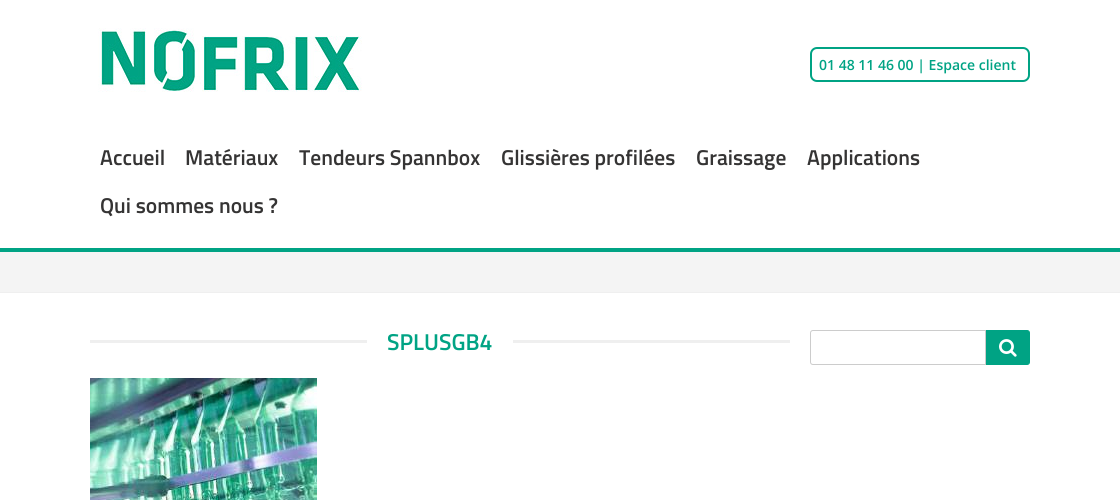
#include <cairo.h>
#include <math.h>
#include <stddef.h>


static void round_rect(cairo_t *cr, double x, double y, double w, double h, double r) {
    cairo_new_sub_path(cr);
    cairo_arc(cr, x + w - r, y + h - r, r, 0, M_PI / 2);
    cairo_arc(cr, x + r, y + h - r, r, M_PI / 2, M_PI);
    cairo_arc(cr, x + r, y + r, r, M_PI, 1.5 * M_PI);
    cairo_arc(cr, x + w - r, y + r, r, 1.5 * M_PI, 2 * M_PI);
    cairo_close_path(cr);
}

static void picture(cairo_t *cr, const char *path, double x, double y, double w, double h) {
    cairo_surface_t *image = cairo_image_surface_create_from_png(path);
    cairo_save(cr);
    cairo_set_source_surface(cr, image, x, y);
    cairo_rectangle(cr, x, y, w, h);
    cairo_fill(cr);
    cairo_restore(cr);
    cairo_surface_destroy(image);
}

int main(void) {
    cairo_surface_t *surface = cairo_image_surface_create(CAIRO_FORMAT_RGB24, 1120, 500);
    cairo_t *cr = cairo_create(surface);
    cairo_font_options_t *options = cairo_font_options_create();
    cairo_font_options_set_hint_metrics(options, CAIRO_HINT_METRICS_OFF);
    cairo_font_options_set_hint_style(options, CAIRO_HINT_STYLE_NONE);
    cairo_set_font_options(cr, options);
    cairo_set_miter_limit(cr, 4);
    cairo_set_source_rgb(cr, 1, 1, 1);
    cairo_paint(cr);
    cairo_set_source_rgb(cr, 0, 0.639, 0.518);
    cairo_rectangle(cr, 0, 248, 1120, 4);
    cairo_fill(cr);
    picture(cr, "img1.png", 98, 28, 264, 64);
    round_rect(cr, 811, 48, 218, 33, 6);
    cairo_stroke(cr);
    cairo_select_font_face(cr, "Open Sans SemiBold", CAIRO_FONT_SLANT_NORMAL, CAIRO_FONT_WEIGHT_NORMAL);
    cairo_set_font_size(cr, 14);
    cairo_move_to(cr, 819, 70);
    cairo_show_text(cr, "01 48 11 46 00 | Espace client");
    cairo_select_font_face(cr, "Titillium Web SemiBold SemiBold", CAIRO_FONT_SLANT_NORMAL, CAIRO_FONT_WEIGHT_NORMAL);
    cairo_set_font_size(cr, 21.5);
    cairo_set_source_rgb(cr, 0.208, 0.204, 0.204);
    cairo_move_to(cr, 100, 165);
    cairo_show_text(cr, "Accueil");
    cairo_move_to(cr, 185, 165);
    cairo_show_text(cr, "Matériaux");
    cairo_move_to(cr, 299, 165);
    cairo_show_text(cr, "Tendeurs Spannbox");
    cairo_move_to(cr, 501, 165);
    cairo_show_text(cr, "Glissières profilées");
    cairo_move_to(cr, 696, 165);
    cairo_show_text(cr, "Graissage");
    cairo_move_to(cr, 807, 165);
    cairo_show_text(cr, "Applications");
    cairo_move_to(cr, 100, 213);
    cairo_show_text(cr, "Qui sommes nous ?");
    cairo_set_source_rgb(cr, 0.957, 0.957, 0.957);
    cairo_rectangle(cr, 0, 252, 1120, 40);
    cairo_fill(cr);
    cairo_set_source_rgb(cr, 0.937, 0.937, 0.937);
    cairo_rectangle(cr, 0, 292, 1120, 1);
    cairo_fill(cr);
    cairo_rectangle(cr, 90, 340, 700, 3);
    cairo_fill(cr);
    cairo_set_source_rgb(cr, 1, 1, 1);
    cairo_rectangle(cr, 367, 340, 146, 3);
    cairo_fill(cr);
    cairo_set_font_size(cr, 23);
    cairo_set_source_rgb(cr, 0, 0.639, 0.518);
    cairo_move_to(cr, 387, 350);
    cairo_show_text(cr, "SPLUSGB4");
    picture(cr, "img2.png", 90, 378, 227, 122);
    cairo_new_path(cr);
    cairo_move_to(cr, 813, 330.5);
    cairo_line_to(cr, 985.5, 330.5);
    cairo_line_to(cr, 985.5, 364.5);
    cairo_line_to(cr, 813, 364.5);
    cairo_curve_to(cr, 811.5, 364.5, 810.5, 363.5, 810.5, 362);
    cairo_line_to(cr, 810.5, 333);
    cairo_curve_to(cr, 810.5, 331.5, 811.5, 330.5, 813, 330.5);
    cairo_close_path(cr);
    cairo_set_source_rgb(cr, 0.8, 0.8, 0.8);
    cairo_set_line_width(cr, 1);
    cairo_stroke(cr);
    cairo_set_source_rgb(cr, 0, 0.639, 0.518);
    cairo_new_path(cr);
    cairo_move_to(cr, 986.5, 330.5);
    cairo_line_to(cr, 1027, 330.5);
    cairo_curve_to(cr, 1028.5, 330.5, 1029.5, 331.5, 1029.5, 333);
    cairo_line_to(cr, 1029.5, 362);
    cairo_curve_to(cr, 1029.5, 363.5, 1028.5, 364.5, 1027, 364.5);
    cairo_line_to(cr, 986.5, 364.5);
    cairo_close_path(cr);
    cairo_fill_preserve(cr);
    cairo_stroke(cr);
    picture(cr, "img3.png", 999, 339, 18, 18);
    cairo_surface_write_to_png(surface, "page.png");
    cairo_font_options_destroy(options);
    cairo_destroy(cr);
    cairo_surface_destroy(surface);
    return 0;
}
